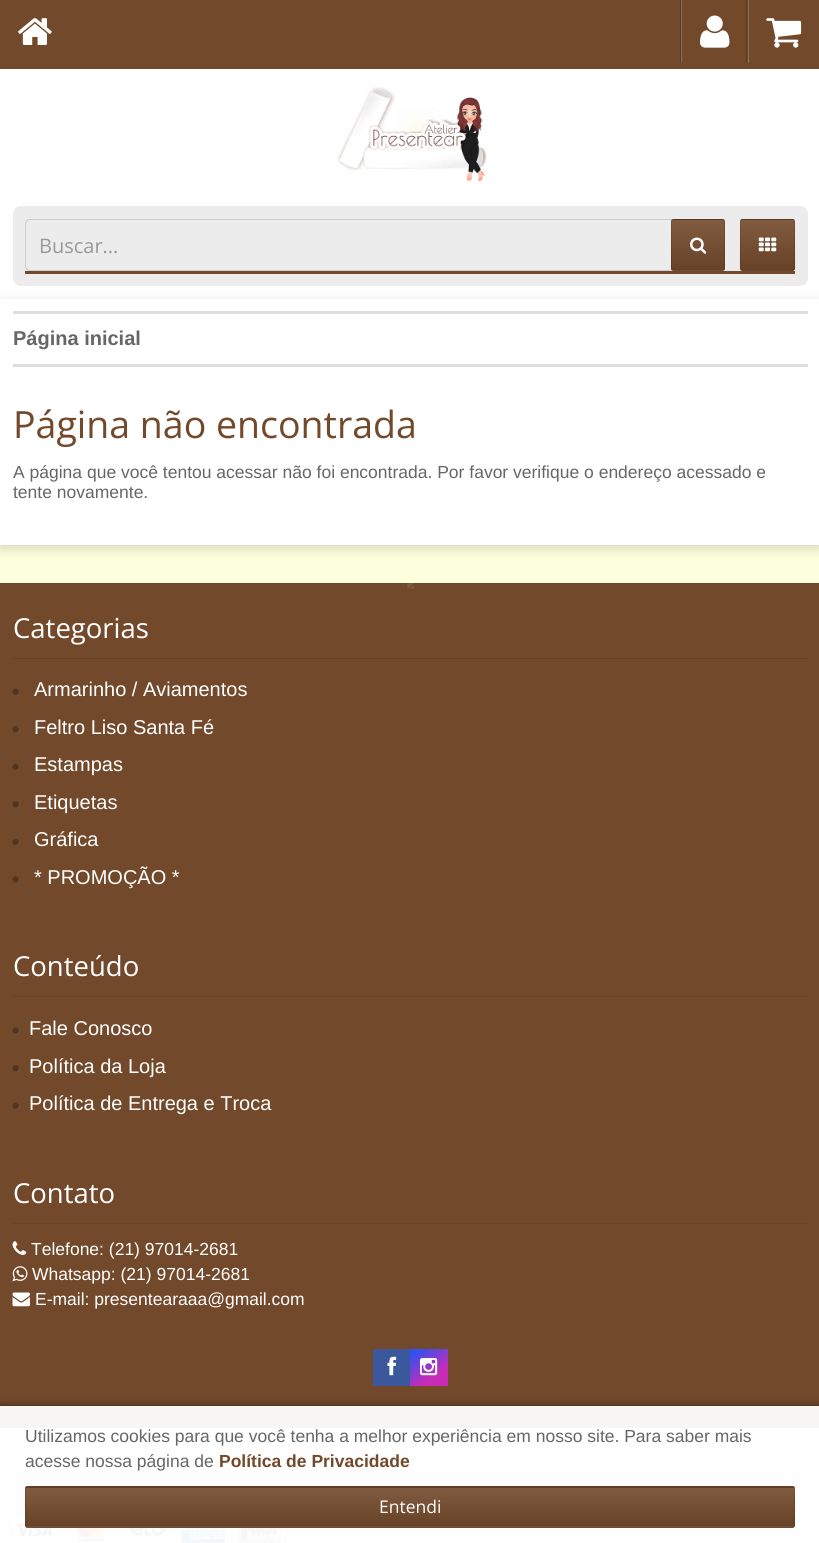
#include <cairo.h>
#include <math.h>
#include <stddef.h>


static void round_rect(cairo_t *cr, double x, double y, double w, double h, double r) {
    cairo_new_sub_path(cr);
    cairo_arc(cr, x + w - r, y + h - r, r, 0, M_PI / 2);
    cairo_arc(cr, x + r, y + h - r, r, M_PI / 2, M_PI);
    cairo_arc(cr, x + r, y + r, r, M_PI, 1.5 * M_PI);
    cairo_arc(cr, x + w - r, y + r, r, 1.5 * M_PI, 2 * M_PI);
    cairo_close_path(cr);
}

static void shadow(cairo_t *cr, double x, double y, double w, double h, double r, double blur, double alpha) {
    cairo_push_group_with_content(cr, CAIRO_CONTENT_ALPHA);
    cairo_set_operator(cr, CAIRO_OPERATOR_SOURCE);
    for (int i = 15; i >= -15 && fmin(w, h) + blur * i / 3 > 0; i -= 2) {
        double e = blur * i / 6;
        cairo_set_source_rgba(cr, 0, 0, 0, alpha * erfc((i - 1) / 8.5) / 2);
        round_rect(cr, x - e, y - e, w + 2 * e, h + 2 * e, fmax(0, fmin(r + e + blur * .6, fmin(w, h) / 2 + e)));
        cairo_fill(cr);
    }
    cairo_pattern_t *soft = cairo_pop_group(cr);
    cairo_mask(cr, soft);
    cairo_pattern_destroy(soft);
}

static void picture(cairo_t *cr, const char *path, double x, double y, double w, double h) {
    cairo_surface_t *image = cairo_image_surface_create_from_png(path);
    cairo_save(cr);
    cairo_set_source_surface(cr, image, x, y);
    cairo_rectangle(cr, x, y, w, h);
    cairo_fill(cr);
    cairo_restore(cr);
    cairo_surface_destroy(image);
}

int main(void) {
    cairo_surface_t *surface = cairo_image_surface_create(CAIRO_FORMAT_RGB24, 819, 1543);
    cairo_t *cr = cairo_create(surface);
    cairo_font_options_t *options = cairo_font_options_create();
    cairo_font_options_set_hint_metrics(options, CAIRO_HINT_METRICS_OFF);
    cairo_font_options_set_hint_style(options, CAIRO_HINT_STYLE_NONE);
    cairo_set_font_options(cr, options);
    cairo_set_miter_limit(cr, 4);
    cairo_pattern_t *gradient;
    cairo_set_source_rgb(cr, 0.996, 1, 0.867);
    cairo_paint(cr);
    cairo_set_source_rgb(cr, 0.451, 0.286, 0.169);
    cairo_rectangle(cr, 0, 0, 819, 69);
    cairo_fill(cr);
    picture(cr, "img1.png", 18, 18, 34, 27);
    cairo_set_source_rgb(cr, 0.361, 0.227, 0.133);
    cairo_rectangle(cr, 680, 0, 1, 63);
    cairo_fill(cr);
    cairo_rectangle(cr, 746, 0, 1, 63);
    cairo_fill(cr);
    cairo_set_source_rgb(cr, 0.561, 0.427, 0.333);
    cairo_rectangle(cr, 681, 0, 1, 63);
    cairo_fill(cr);
    picture(cr, "img2.png", 700, 15, 30, 33);
    cairo_rectangle(cr, 748, 0, 1, 63);
    cairo_fill(cr);
    picture(cr, "img3.png", 766, 18, 36, 30);
    cairo_set_source_rgb(cr, 1, 1, 1);
    cairo_rectangle(cr, 0, 69, 819, 230);
    cairo_fill(cr);
    picture(cr, "img4.png", 337, 87, 150, 95);
    cairo_set_source_rgb(cr, 0, 0, 0);
    shadow(cr, 0, 303, 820, 246, 0, 6, 0.15);
    cairo_set_source_rgb(cr, 0.922, 0.922, 0.922);
    round_rect(cr, 13, 206, 795, 80, 8);
    cairo_fill(cr);
    round_rect(cr, 25.5, 219.5, 659, 51, 4.5);
    cairo_set_source_rgb(cr, 0.8, 0.8, 0.8);
    cairo_set_line_width(cr, 1);
    cairo_stroke(cr);
    cairo_select_font_face(cr, "Open Sans", CAIRO_FONT_SLANT_NORMAL, CAIRO_FONT_WEIGHT_NORMAL);
    cairo_set_font_size(cr, 20);
    cairo_set_source_rgb(cr, 0.6, 0.6, 0.6);
    cairo_move_to(cr, 39, 253);
    cairo_show_text(cr, "Buscar...");
    cairo_set_source_rgb(cr, 0.451, 0.286, 0.169);
    round_rect(cr, 671, 219, 54, 52, 2.5);
    cairo_fill(cr);
    gradient = cairo_pattern_create_linear(698, 170, 698, 220);
    cairo_pattern_add_color_stop_rgba(gradient, 0, 1, 1, 1, 0.1);
    cairo_pattern_add_color_stop_rgba(gradient, 1, 0, 0, 0, 0.1);
    cairo_set_source(cr, gradient);
    cairo_pattern_destroy(gradient);
    cairo_rectangle(cr, 671, 219, 54, 1);
    cairo_fill(cr);
    gradient = cairo_pattern_create_linear(698, 220, 698, 270);
    cairo_pattern_add_color_stop_rgba(gradient, 0, 1, 1, 1, 0.1);
    cairo_pattern_add_color_stop_rgba(gradient, 1, 0, 0, 0, 0.1);
    cairo_set_source(cr, gradient);
    cairo_pattern_destroy(gradient);
    cairo_rectangle(cr, 671, 220, 54, 50);
    cairo_fill(cr);
    gradient = cairo_pattern_create_linear(698, 270, 698, 320);
    cairo_pattern_add_color_stop_rgba(gradient, 0, 1, 1, 1, 0.1);
    cairo_pattern_add_color_stop_rgba(gradient, 1, 0, 0, 0, 0.1);
    cairo_set_source(cr, gradient);
    cairo_pattern_destroy(gradient);
    cairo_rectangle(cr, 671, 270, 54, 1);
    cairo_fill(cr);
    round_rect(cr, 671.5, 219.5, 53, 51, 2);
    cairo_set_source_rgba(cr, 0, 0, 0, 0.13);
    cairo_stroke(cr);
    picture(cr, "img5.png", 690, 237, 17, 17);
    cairo_set_source_rgb(cr, 0.451, 0.286, 0.169);
    round_rect(cr, 740, 219, 55, 52, 2.5);
    cairo_fill(cr);
    gradient = cairo_pattern_create_linear(768, 170, 768, 220);
    cairo_pattern_add_color_stop_rgba(gradient, 0, 1, 1, 1, 0.1);
    cairo_pattern_add_color_stop_rgba(gradient, 1, 0, 0, 0, 0.1);
    cairo_set_source(cr, gradient);
    cairo_pattern_destroy(gradient);
    cairo_rectangle(cr, 740, 219, 55, 1);
    cairo_fill(cr);
    gradient = cairo_pattern_create_linear(768, 220, 768, 270);
    cairo_pattern_add_color_stop_rgba(gradient, 0, 1, 1, 1, 0.1);
    cairo_pattern_add_color_stop_rgba(gradient, 1, 0, 0, 0, 0.1);
    cairo_set_source(cr, gradient);
    cairo_pattern_destroy(gradient);
    cairo_rectangle(cr, 740, 220, 55, 50);
    cairo_fill(cr);
    gradient = cairo_pattern_create_linear(768, 270, 768, 320);
    cairo_pattern_add_color_stop_rgba(gradient, 0, 1, 1, 1, 0.1);
    cairo_pattern_add_color_stop_rgba(gradient, 1, 0, 0, 0, 0.1);
    cairo_set_source(cr, gradient);
    cairo_pattern_destroy(gradient);
    cairo_rectangle(cr, 740, 270, 55, 1);
    cairo_fill(cr);
    cairo_set_source_rgb(cr, 0.451, 0.286, 0.169);
    cairo_rectangle(cr, 25, 271, 770, 3);
    cairo_fill(cr);
    cairo_new_path(cr);
    cairo_move_to(cr, 794, 270);
    cairo_line_to(cr, 792.5, 270.5);
    cairo_line_to(cr, 742.5, 270.5);
    cairo_line_to(cr, 741, 270);
    cairo_set_source_rgba(cr, 0, 0, 0, 0.2);
    cairo_set_line_width(cr, 1.2);
    cairo_stroke(cr);
    cairo_new_path(cr);
    cairo_move_to(cr, 741, 270);
    cairo_curve_to(cr, 739.5, 268.5, 740.5, 248.5, 740.5, 245);
    cairo_line_to(cr, 740.5, 229);
    cairo_curve_to(cr, 740.5, 217.5, 739, 219.5, 751, 219.5);
    cairo_line_to(cr, 784, 219.5);
    cairo_curve_to(cr, 796, 219.5, 794.5, 217.5, 794.5, 229);
    cairo_line_to(cr, 794.5, 245);
    cairo_curve_to(cr, 794.5, 248.5, 795.5, 268.5, 794, 270);
    cairo_set_source_rgba(cr, 0, 0, 0, 0.1);
    cairo_stroke(cr);
    picture(cr, "img6.png", 758, 237, 19, 15);
    cairo_set_source_rgb(cr, 1, 1, 1);
    cairo_rectangle(cr, 0, 299, 819, 246);
    cairo_fill(cr);
    cairo_set_source_rgb(cr, 0.871, 0.871, 0.871);
    cairo_rectangle(cr, 13, 311, 795, 3);
    cairo_fill(cr);
    cairo_rectangle(cr, 13, 364, 795, 3);
    cairo_fill(cr);
    cairo_select_font_face(cr, "Liberation Sans", CAIRO_FONT_SLANT_NORMAL, CAIRO_FONT_WEIGHT_BOLD);
    cairo_set_source_rgb(cr, 0.4, 0.4, 0.4);
    cairo_move_to(cr, 13, 345);
    cairo_show_text(cr, "Página inicial");
    cairo_select_font_face(cr, "Open Sans", CAIRO_FONT_SLANT_NORMAL, CAIRO_FONT_WEIGHT_NORMAL);
    cairo_set_font_size(cr, 37.5);
    cairo_set_source_rgb(cr, 0.451, 0.286, 0.169);
    cairo_move_to(cr, 13, 438);
    cairo_show_text(cr, "Página não encontrada");
    cairo_select_font_face(cr, "Liberation Sans", CAIRO_FONT_SLANT_NORMAL, CAIRO_FONT_WEIGHT_NORMAL);
    cairo_set_font_size(cr, 17.5);
    cairo_set_source_rgb(cr, 0.4, 0.4, 0.4);
    cairo_move_to(cr, 13, 478);
    cairo_show_text(cr, "A página que você tentou acessar não foi encontrada. Por favor verifique o endereço acessado e");
    cairo_move_to(cr, 13, 498);
    cairo_show_text(cr, "tente novamente.");
    cairo_set_source_rgb(cr, 0.451, 0.286, 0.169);
    cairo_rectangle(cr, 0, 583, 819, 845);
    cairo_fill(cr);
    picture(cr, "img7.png", 407, 582, 7, 7);
    cairo_set_source_rgb(cr, 0.408, 0.259, 0.153);
    cairo_rectangle(cr, 13, 658, 795, 1);
    cairo_fill(cr);
    cairo_select_font_face(cr, "Open Sans", CAIRO_FONT_SLANT_NORMAL, CAIRO_FONT_WEIGHT_NORMAL);
    cairo_set_font_size(cr, 27.5);
    cairo_set_source_rgb(cr, 1, 1, 1);
    cairo_move_to(cr, 13, 638);
    cairo_show_text(cr, "Categorias");
    picture(cr, "img8.png", 12, 688, 8, 8);
    cairo_select_font_face(cr, "Liberation Sans", CAIRO_FONT_SLANT_NORMAL, CAIRO_FONT_WEIGHT_NORMAL);
    cairo_set_font_size(cr, 20);
    cairo_move_to(cr, 34, 696);
    cairo_show_text(cr, "Armarinho / Aviamentos");
    picture(cr, "img9.png", 12, 726, 8, 8);
    cairo_move_to(cr, 34, 734);
    cairo_show_text(cr, "Feltro Liso Santa Fé");
    picture(cr, "img8.png", 12, 763, 8, 8);
    cairo_move_to(cr, 34, 771);
    cairo_show_text(cr, "Estampas");
    picture(cr, "img9.png", 12, 801, 8, 8);
    cairo_move_to(cr, 34, 809);
    cairo_show_text(cr, "Etiquetas");
    picture(cr, "img8.png", 12, 838, 8, 8);
    cairo_move_to(cr, 34, 846);
    cairo_show_text(cr, "Gráfica");
    picture(cr, "img9.png", 12, 876, 8, 8);
    cairo_move_to(cr, 34, 884);
    cairo_show_text(cr, "* PROMOÇÃO *");
    cairo_set_source_rgb(cr, 0.408, 0.259, 0.153);
    cairo_rectangle(cr, 13, 996, 795, 1);
    cairo_fill(cr);
    cairo_select_font_face(cr, "Open Sans", CAIRO_FONT_SLANT_NORMAL, CAIRO_FONT_WEIGHT_NORMAL);
    cairo_set_font_size(cr, 27.5);
    cairo_set_source_rgb(cr, 1, 1, 1);
    cairo_move_to(cr, 13, 976);
    cairo_show_text(cr, "Conteúdo");
    picture(cr, "img10.png", 12, 1027, 8, 8);
    cairo_select_font_face(cr, "Liberation Sans", CAIRO_FONT_SLANT_NORMAL, CAIRO_FONT_WEIGHT_NORMAL);
    cairo_set_font_size(cr, 20);
    cairo_move_to(cr, 29, 1035);
    cairo_show_text(cr, "Fale Conosco");
    picture(cr, "img11.png", 12, 1065, 8, 8);
    cairo_move_to(cr, 29, 1073);
    cairo_show_text(cr, "Política da Loja");
    picture(cr, "img10.png", 12, 1102, 8, 8);
    cairo_move_to(cr, 29, 1110);
    cairo_show_text(cr, "Política de Entrega e Troca");
    cairo_set_source_rgb(cr, 0.408, 0.259, 0.153);
    cairo_rectangle(cr, 13, 1223, 795, 1);
    cairo_fill(cr);
    cairo_select_font_face(cr, "Open Sans", CAIRO_FONT_SLANT_NORMAL, CAIRO_FONT_WEIGHT_NORMAL);
    cairo_set_font_size(cr, 27.5);
    cairo_set_source_rgb(cr, 1, 1, 1);
    cairo_move_to(cr, 13, 1203);
    cairo_show_text(cr, "Contato");
    picture(cr, "img12.png", 12, 1241, 15, 14);
    cairo_select_font_face(cr, "Liberation Sans", CAIRO_FONT_SLANT_NORMAL, CAIRO_FONT_WEIGHT_NORMAL);
    cairo_set_font_size(cr, 17.5);
    cairo_move_to(cr, 31, 1255);
    cairo_show_text(cr, "Telefone: (21) 97014-2681");
    picture(cr, "img13.png", 12, 1266, 16, 16);
    cairo_move_to(cr, 32, 1280);
    cairo_show_text(cr, "Whatsapp: (21) 97014-2681");
    picture(cr, "img14.png", 12, 1292, 18, 15);
    cairo_move_to(cr, 35, 1305);
    cairo_show_text(cr, "E-mail: presentearaaa@gmail.com");
    cairo_set_source_rgb(cr, 0.227, 0.345, 0.608);
    cairo_rectangle(cr, 373, 1349, 37, 37);
    cairo_fill(cr);
    picture(cr, "img15.png", 387, 1356, 10, 20);
    gradient = cairo_pattern_create_linear(414, 1346, 444, 1389);
    cairo_pattern_add_color_stop_rgba(gradient, 0.1, 0.188, 0.318, 0.945, 1);
    cairo_pattern_add_color_stop_rgba(gradient, 0.7, 0.788, 0.169, 0.718, 1);
    cairo_set_source(cr, gradient);
    cairo_pattern_destroy(gradient);
    cairo_rectangle(cr, 410, 1349, 38, 37);
    cairo_fill(cr);
    picture(cr, "img16.png", 420, 1358, 18, 18);
    cairo_set_source_rgb(cr, 0.933, 0.933, 0.933);
    cairo_rectangle(cr, 0, 1428, 819, 115);
    cairo_fill(cr);
    picture(cr, "img17.png", 0, 1427, 819, 116);
    cairo_set_source_rgba(cr, 0, 0, 0, 0.1);
    cairo_rectangle(cr, 13, 1503, 795, 1);
    cairo_fill(cr);
    picture(cr, "img18.png", 12, 1516, 45, 27);
    picture(cr, "img19.png", 68, 1528, 45, 15);
    picture(cr, "img20.png", 125, 1528, 44, 15);
    picture(cr, "img21.png", 181, 1528, 44, 15);
    picture(cr, "img22.png", 237, 1528, 45, 15);
    cairo_save(cr);
    cairo_set_fill_rule(cr, CAIRO_FILL_RULE_EVEN_ODD);
    cairo_new_path(cr);
    cairo_move_to(cr, 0, 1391);
    cairo_line_to(cr, 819, 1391);
    cairo_line_to(cr, 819, 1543);
    cairo_line_to(cr, 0, 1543);
    cairo_close_path(cr);
    cairo_move_to(cr, 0, 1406);
    cairo_line_to(cr, 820, 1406);
    cairo_line_to(cr, 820, 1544);
    cairo_line_to(cr, 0, 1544);
    cairo_close_path(cr);
    cairo_clip(cr);
    cairo_set_source_rgb(cr, 0, 0, 0);
    shadow(cr, 0, 1406, 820, 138, 0, 4.5, 0.5);
    cairo_restore(cr);
    cairo_set_source_rgba(cr, 1, 1, 1, 0.95);
    cairo_rectangle(cr, 0, 1406, 819, 137);
    cairo_fill(cr);
    cairo_set_source_rgb(cr, 0.4, 0.4, 0.4);
    cairo_move_to(cr, 25, 1442);
    cairo_show_text(cr, "Utilizamos cookies para que você tenha a melhor experiência em nosso site. Para saber mais");
    cairo_move_to(cr, 25, 1467);
    cairo_show_text(cr, "acesse nossa página de");
    cairo_select_font_face(cr, "Liberation Sans", CAIRO_FONT_SLANT_NORMAL, CAIRO_FONT_WEIGHT_BOLD);
    cairo_set_source_rgb(cr, 0.451, 0.286, 0.169);
    cairo_move_to(cr, 219, 1467);
    cairo_show_text(cr, "Política de Privacidade");
    round_rect(cr, 25, 1486, 770, 42, 2.5);
    cairo_fill(cr);
    gradient = cairo_pattern_create_linear(410, 1449, 410, 1488);
    cairo_pattern_add_color_stop_rgba(gradient, 0, 1, 1, 1, 0.1);
    cairo_pattern_add_color_stop_rgba(gradient, 1, 0, 0, 0, 0.1);
    cairo_set_source(cr, gradient);
    cairo_pattern_destroy(gradient);
    cairo_rectangle(cr, 25, 1486, 770, 2);
    cairo_fill(cr);
    gradient = cairo_pattern_create_linear(410, 1488, 410, 1526);
    cairo_pattern_add_color_stop_rgba(gradient, 0, 1, 1, 1, 0.1);
    cairo_pattern_add_color_stop_rgba(gradient, 1, 0, 0, 0, 0.1);
    cairo_set_source(cr, gradient);
    cairo_pattern_destroy(gradient);
    cairo_rectangle(cr, 25, 1488, 770, 38);
    cairo_fill(cr);
    gradient = cairo_pattern_create_linear(410, 1526, 410, 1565);
    cairo_pattern_add_color_stop_rgba(gradient, 0, 1, 1, 1, 0.1);
    cairo_pattern_add_color_stop_rgba(gradient, 1, 0, 0, 0, 0.1);
    cairo_set_source(cr, gradient);
    cairo_pattern_destroy(gradient);
    cairo_rectangle(cr, 25, 1526, 770, 2);
    cairo_fill(cr);
    cairo_new_path(cr);
    cairo_move_to(cr, 794, 1526.5);
    cairo_line_to(cr, 792.5, 1527);
    cairo_line_to(cr, 27.5, 1527);
    cairo_line_to(cr, 26, 1526.5);
    cairo_set_source_rgba(cr, 0, 0, 0, 0.2);
    cairo_stroke(cr);
    cairo_new_path(cr);
    cairo_move_to(cr, 26, 1526.5);
    cairo_curve_to(cr, 25.5, 1525.5, 25, 1489, 26, 1487.5);
    cairo_line_to(cr, 26.5, 1487);
    cairo_line_to(cr, 410, 1487);
    cairo_line_to(cr, 793.5, 1487);
    cairo_line_to(cr, 794, 1487.5);
    cairo_curve_to(cr, 795, 1489, 794.5, 1525.5, 794, 1526.5);
    cairo_set_source_rgba(cr, 0, 0, 0, 0.1);
    cairo_stroke(cr);
    cairo_select_font_face(cr, "Open Sans", CAIRO_FONT_SLANT_NORMAL, CAIRO_FONT_WEIGHT_NORMAL);
    cairo_set_source_rgb(cr, 1, 1, 1);
    cairo_move_to(cr, 379, 1513);
    cairo_show_text(cr, "Entendi");
    cairo_surface_write_to_png(surface, "page.png");
    cairo_font_options_destroy(options);
    cairo_destroy(cr);
    cairo_surface_destroy(surface);
    return 0;
}
